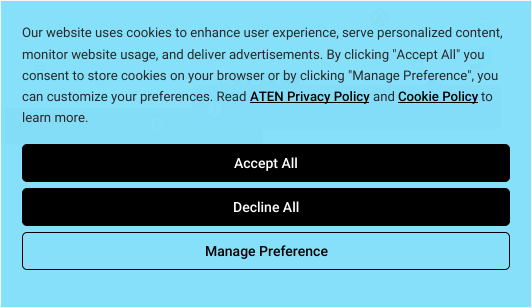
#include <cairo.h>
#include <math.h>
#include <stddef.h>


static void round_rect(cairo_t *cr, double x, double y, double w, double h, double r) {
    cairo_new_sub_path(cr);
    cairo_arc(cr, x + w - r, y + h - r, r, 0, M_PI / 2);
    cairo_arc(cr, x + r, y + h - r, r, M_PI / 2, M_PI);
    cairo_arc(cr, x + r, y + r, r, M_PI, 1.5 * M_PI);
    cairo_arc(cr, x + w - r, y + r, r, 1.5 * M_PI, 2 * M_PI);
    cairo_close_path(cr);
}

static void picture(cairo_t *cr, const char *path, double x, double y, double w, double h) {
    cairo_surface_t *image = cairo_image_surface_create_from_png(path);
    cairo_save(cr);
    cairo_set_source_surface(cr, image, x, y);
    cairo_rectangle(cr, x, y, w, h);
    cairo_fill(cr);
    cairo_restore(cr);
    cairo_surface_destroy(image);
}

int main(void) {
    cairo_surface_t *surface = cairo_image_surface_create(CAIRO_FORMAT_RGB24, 532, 308);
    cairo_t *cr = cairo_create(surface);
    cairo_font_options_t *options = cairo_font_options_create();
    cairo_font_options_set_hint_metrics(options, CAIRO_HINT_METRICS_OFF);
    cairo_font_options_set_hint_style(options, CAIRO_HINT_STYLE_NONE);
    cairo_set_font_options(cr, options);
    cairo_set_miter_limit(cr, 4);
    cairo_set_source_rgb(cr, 0.529, 0.878, 0.976);
    cairo_paint(cr);
    picture(cr, "img1.png", 371, 9, 18, 18);
    picture(cr, "img2.png", 480, 16, 6, 5);
    picture(cr, "img3.png", 34, 65, 12, 10);
    cairo_set_source_rgb(cr, 0.51, 0.875, 0.976);
    round_rect(cr, 475, 46, 19, 20, 9.5);
    cairo_fill(cr);
    picture(cr, "img4.png", 468, 63, 13, 11);
    picture(cr, "img5.png", 412, 59, 13, 13);
    cairo_set_source_rgb(cr, 0.518, 0.867, 0.965);
    cairo_rectangle(cr, 5, 108, 258, 36);
    cairo_fill(cr);
    cairo_set_source_rgb(cr, 0.529, 0.878, 0.976);
    round_rect(cr, 193, 86, 308, 43, 5);
    cairo_fill_preserve(cr);
    cairo_set_source_rgb(cr, 0.514, 0.867, 0.973);
    cairo_stroke(cr);
    cairo_new_path(cr);
    cairo_move_to(cr, 444, 87);
    cairo_line_to(cr, 422, 87);
    cairo_line_to(cr, 433, 76);
    cairo_close_path(cr);
    cairo_fill(cr);
    cairo_new_path(cr);
    cairo_move_to(cr, 199, 87);
    cairo_line_to(cr, 495, 87);
    cairo_curve_to(cr, 498, 87, 500, 89, 500, 92);
    cairo_line_to(cr, 500, 128);
    cairo_line_to(cr, 194, 128);
    cairo_line_to(cr, 194, 92);
    cairo_curve_to(cr, 194, 89, 196, 87, 199, 87);
    cairo_close_path(cr);
    cairo_fill(cr);
    picture(cr, "img6.png", 208, 102, 14, 14);
    picture(cr, "img7.png", 218, 71, 82, 14);
    picture(cr, "img8.png", 151, 118, 14, 14);
    picture(cr, "img9.png", 477, 254, 11, 7);
    cairo_rectangle(cr, 0.5, 0.5, 531, 307);
    cairo_set_source_rgb(cr, 0.957, 0.957, 0.957);
    cairo_set_line_width(cr, 1);
    cairo_stroke(cr);
    cairo_select_font_face(cr, "Roboto", CAIRO_FONT_SLANT_NORMAL, CAIRO_FONT_WEIGHT_NORMAL);
    cairo_set_font_size(cr, 13.2);
    cairo_set_source_rgb(cr, 0.153, 0.161, 0.165);
    cairo_move_to(cr, 22, 37);
    cairo_show_text(cr, "Our website uses cookies to enhance user experience, serve personalized content,");
    cairo_move_to(cr, 22, 59);
    cairo_show_text(cr, "monitor website usage, and deliver advertisements. By clicking \"Accept All\" you");
    cairo_move_to(cr, 22, 80);
    cairo_show_text(cr, "consent to store cookies on your browser or by clicking \"Manage Preference\", you");
    cairo_move_to(cr, 22, 101);
    cairo_show_text(cr, "can customize your preferences. Read");
    cairo_set_source_rgb(cr, 0, 0, 0);
    cairo_rectangle(cr, 250, 102, 119, 1);
    cairo_fill(cr);
    cairo_select_font_face(cr, "Roboto Medium", CAIRO_FONT_SLANT_NORMAL, CAIRO_FONT_WEIGHT_NORMAL);
    cairo_move_to(cr, 250, 101);
    cairo_show_text(cr, "ATEN Privacy Policy");
    cairo_select_font_face(cr, "Roboto", CAIRO_FONT_SLANT_NORMAL, CAIRO_FONT_WEIGHT_NORMAL);
    cairo_set_source_rgb(cr, 0.153, 0.161, 0.165);
    cairo_move_to(cr, 373, 101);
    cairo_show_text(cr, "and");
    cairo_set_source_rgb(cr, 0, 0, 0);
    cairo_rectangle(cr, 398, 102, 80, 1);
    cairo_fill(cr);
    cairo_select_font_face(cr, "Roboto Medium", CAIRO_FONT_SLANT_NORMAL, CAIRO_FONT_WEIGHT_NORMAL);
    cairo_move_to(cr, 398, 101);
    cairo_show_text(cr, "Cookie Policy");
    cairo_select_font_face(cr, "Roboto", CAIRO_FONT_SLANT_NORMAL, CAIRO_FONT_WEIGHT_NORMAL);
    cairo_set_source_rgb(cr, 0.153, 0.161, 0.165);
    cairo_move_to(cr, 481, 101);
    cairo_show_text(cr, "to");
    cairo_move_to(cr, 22, 122);
    cairo_show_text(cr, "learn more.");
    cairo_set_source_rgb(cr, 0, 0, 0);
    round_rect(cr, 22.5, 144.5, 487, 37, 4.5);
    cairo_fill_preserve(cr);
    cairo_stroke(cr);
    cairo_select_font_face(cr, "Roboto Medium", CAIRO_FONT_SLANT_NORMAL, CAIRO_FONT_WEIGHT_NORMAL);
    cairo_set_font_size(cr, 14);
    cairo_set_source_rgb(cr, 1, 1, 1);
    cairo_move_to(cr, 234, 168);
    cairo_show_text(cr, "Accept All");
    cairo_set_source_rgb(cr, 0, 0, 0);
    round_rect(cr, 22.5, 188.5, 487, 37, 4.5);
    cairo_fill_preserve(cr);
    cairo_stroke(cr);
    cairo_set_source_rgb(cr, 1, 1, 1);
    cairo_move_to(cr, 233, 212);
    cairo_show_text(cr, "Decline All");
    round_rect(cr, 22.5, 232.5, 487, 37, 4.5);
    cairo_set_source_rgb(cr, 0, 0, 0);
    cairo_stroke(cr);
    cairo_move_to(cr, 205, 256);
    cairo_show_text(cr, "Manage Preference");
    cairo_surface_write_to_png(surface, "page.png");
    cairo_font_options_destroy(options);
    cairo_destroy(cr);
    cairo_surface_destroy(surface);
    return 0;
}
